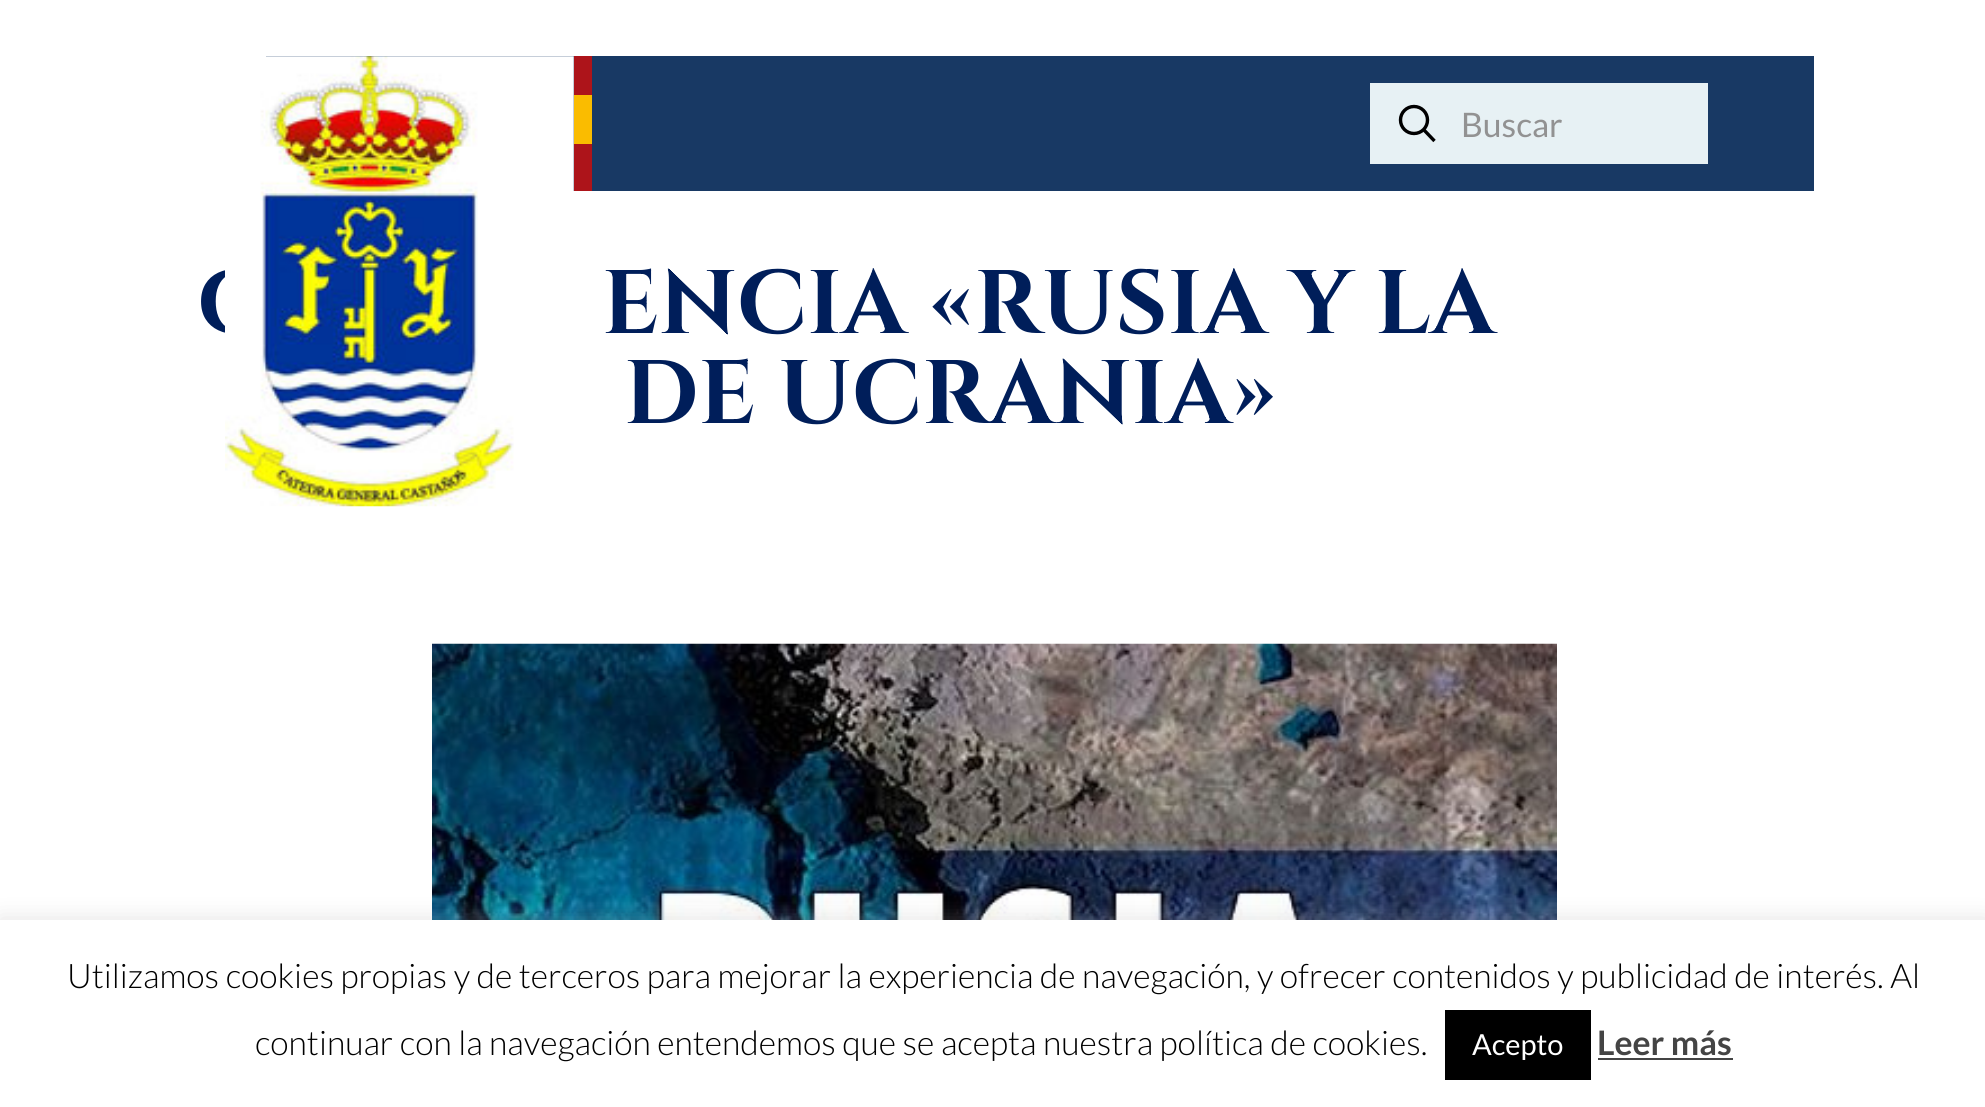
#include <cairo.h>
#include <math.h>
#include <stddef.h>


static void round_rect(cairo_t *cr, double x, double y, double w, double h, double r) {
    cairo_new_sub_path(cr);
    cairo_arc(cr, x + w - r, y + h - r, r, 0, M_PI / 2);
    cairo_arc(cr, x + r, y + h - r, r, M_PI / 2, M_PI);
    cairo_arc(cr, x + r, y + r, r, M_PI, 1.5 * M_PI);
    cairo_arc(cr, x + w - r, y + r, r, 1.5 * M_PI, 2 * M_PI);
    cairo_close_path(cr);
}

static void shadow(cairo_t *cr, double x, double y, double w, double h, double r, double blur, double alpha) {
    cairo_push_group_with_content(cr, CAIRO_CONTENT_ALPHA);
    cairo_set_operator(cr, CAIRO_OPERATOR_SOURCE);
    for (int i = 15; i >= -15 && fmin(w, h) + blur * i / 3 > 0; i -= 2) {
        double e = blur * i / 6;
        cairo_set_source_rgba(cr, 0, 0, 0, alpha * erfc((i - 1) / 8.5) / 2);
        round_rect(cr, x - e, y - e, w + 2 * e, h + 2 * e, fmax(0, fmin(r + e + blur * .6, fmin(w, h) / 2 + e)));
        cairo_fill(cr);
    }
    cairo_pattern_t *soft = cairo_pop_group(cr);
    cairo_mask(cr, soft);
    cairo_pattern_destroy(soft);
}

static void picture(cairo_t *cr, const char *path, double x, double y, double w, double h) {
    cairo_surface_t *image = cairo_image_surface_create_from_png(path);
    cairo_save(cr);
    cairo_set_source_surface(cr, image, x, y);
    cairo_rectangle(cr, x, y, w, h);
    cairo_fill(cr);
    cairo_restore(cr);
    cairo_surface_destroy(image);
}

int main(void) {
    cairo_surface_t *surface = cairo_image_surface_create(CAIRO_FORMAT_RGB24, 1985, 1107);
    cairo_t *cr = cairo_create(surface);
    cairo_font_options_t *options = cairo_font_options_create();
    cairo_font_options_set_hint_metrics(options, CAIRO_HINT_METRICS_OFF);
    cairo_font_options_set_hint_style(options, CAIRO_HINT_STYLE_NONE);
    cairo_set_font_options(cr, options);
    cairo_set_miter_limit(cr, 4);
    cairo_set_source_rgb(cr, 1, 1, 1);
    cairo_paint(cr);
    cairo_set_source_rgb(cr, 0.094, 0.224, 0.392);
    cairo_rectangle(cr, 266, 56, 1548, 135);
    cairo_fill(cr);
    cairo_select_font_face(cr, "Cinzel", CAIRO_FONT_SLANT_NORMAL, CAIRO_FONT_WEIGHT_BOLD);
    cairo_set_font_size(cr, 90);
    cairo_set_source_rgb(cr, 0, 0.118, 0.353);
    cairo_move_to(cr, 197, 333);
    cairo_show_text(cr, "C");
    picture(cr, "img1.png", 225, 56, 349, 451);
    cairo_set_source_rgb(cr, 0.678, 0.082, 0.102);
    cairo_rectangle(cr, 574, 56, 18, 39);
    cairo_fill(cr);
    cairo_set_source_rgb(cr, 0.98, 0.737, 0);
    cairo_rectangle(cr, 574, 95, 18, 49);
    cairo_fill(cr);
    cairo_set_source_rgb(cr, 0.678, 0.082, 0.102);
    cairo_rectangle(cr, 574, 144, 18, 47);
    cairo_fill(cr);
    cairo_set_source_rgb(cr, 0.906, 0.945, 0.957);
    cairo_rectangle(cr, 1370, 83, 338, 81);
    cairo_fill(cr);
    cairo_arc(cr, 1414, 120, 13.5, 0, 2 * M_PI);
    cairo_set_source_rgb(cr, 0, 0, 0);
    cairo_set_line_width(cr, 3.4);
    cairo_stroke(cr);
    cairo_new_path(cr);
    cairo_move_to(cr, 1423.5, 129.5);
    cairo_line_to(cr, 1434.5, 141);
    cairo_stroke(cr);
    cairo_select_font_face(cr, "Lato", CAIRO_FONT_SLANT_NORMAL, CAIRO_FONT_WEIGHT_NORMAL);
    cairo_set_font_size(cr, 33.75);
    cairo_set_source_rgb(cr, 0.573, 0.573, 0.573);
    cairo_move_to(cr, 1461, 137);
    cairo_show_text(cr, "Buscar");
    cairo_select_font_face(cr, "Cinzel", CAIRO_FONT_SLANT_NORMAL, CAIRO_FONT_WEIGHT_BOLD);
    cairo_set_font_size(cr, 90);
    cairo_set_source_rgb(cr, 0, 0.118, 0.353);
    cairo_move_to(cr, 602, 333);
    cairo_show_text(cr, "ENCIA «RUSIA Y LA");
    cairo_move_to(cr, 624, 423);
    cairo_show_text(cr, "DE UCRANIA»");
    picture(cr, "img2.png", 432, 643, 1125, 277);
    cairo_set_source_rgb(cr, 0.675, 0.671, 0.671);
    shadow(cr, 0, 918, 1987, 187, 0, 11, 0.3);
    cairo_set_source_rgb(cr, 1, 1, 1);
    cairo_rectangle(cr, 0, 920, 1985, 187);
    cairo_fill(cr);
    cairo_select_font_face(cr, "Lato Light", CAIRO_FONT_SLANT_NORMAL, CAIRO_FONT_WEIGHT_NORMAL);
    cairo_set_font_size(cr, 33.75);
    cairo_set_source_rgb(cr, 0, 0, 0);
    cairo_move_to(cr, 67, 988);
    cairo_show_text(cr, "Utilizamos cookies propias y de terceros para mejorar la experiencia de navegación, y ofrecer contenidos y publicidad de interés. Al");
    cairo_move_to(cr, 255, 1055);
    cairo_show_text(cr, "continuar con la navegación entendemos que se acepta nuestra política de cookies.");
    cairo_rectangle(cr, 1445, 1010, 146, 70);
    cairo_fill(cr);
    cairo_select_font_face(cr, "Lato", CAIRO_FONT_SLANT_NORMAL, CAIRO_FONT_WEIGHT_NORMAL);
    cairo_set_font_size(cr, 29);
    cairo_set_source_rgb(cr, 1, 1, 1);
    cairo_move_to(cr, 1472, 1055);
    cairo_show_text(cr, "Acepto");
    cairo_select_font_face(cr, "Lato", CAIRO_FONT_SLANT_NORMAL, CAIRO_FONT_WEIGHT_BOLD);
    cairo_set_font_size(cr, 33.75);
    cairo_set_source_rgb(cr, 0.267, 0.267, 0.267);
    cairo_move_to(cr, 1597, 1055);
    cairo_show_text(cr, "Leer más");
    cairo_rectangle(cr, 1598, 1058, 135, 2);
    cairo_fill(cr);
    cairo_surface_write_to_png(surface, "page.png");
    cairo_font_options_destroy(options);
    cairo_destroy(cr);
    cairo_surface_destroy(surface);
    return 0;
}
